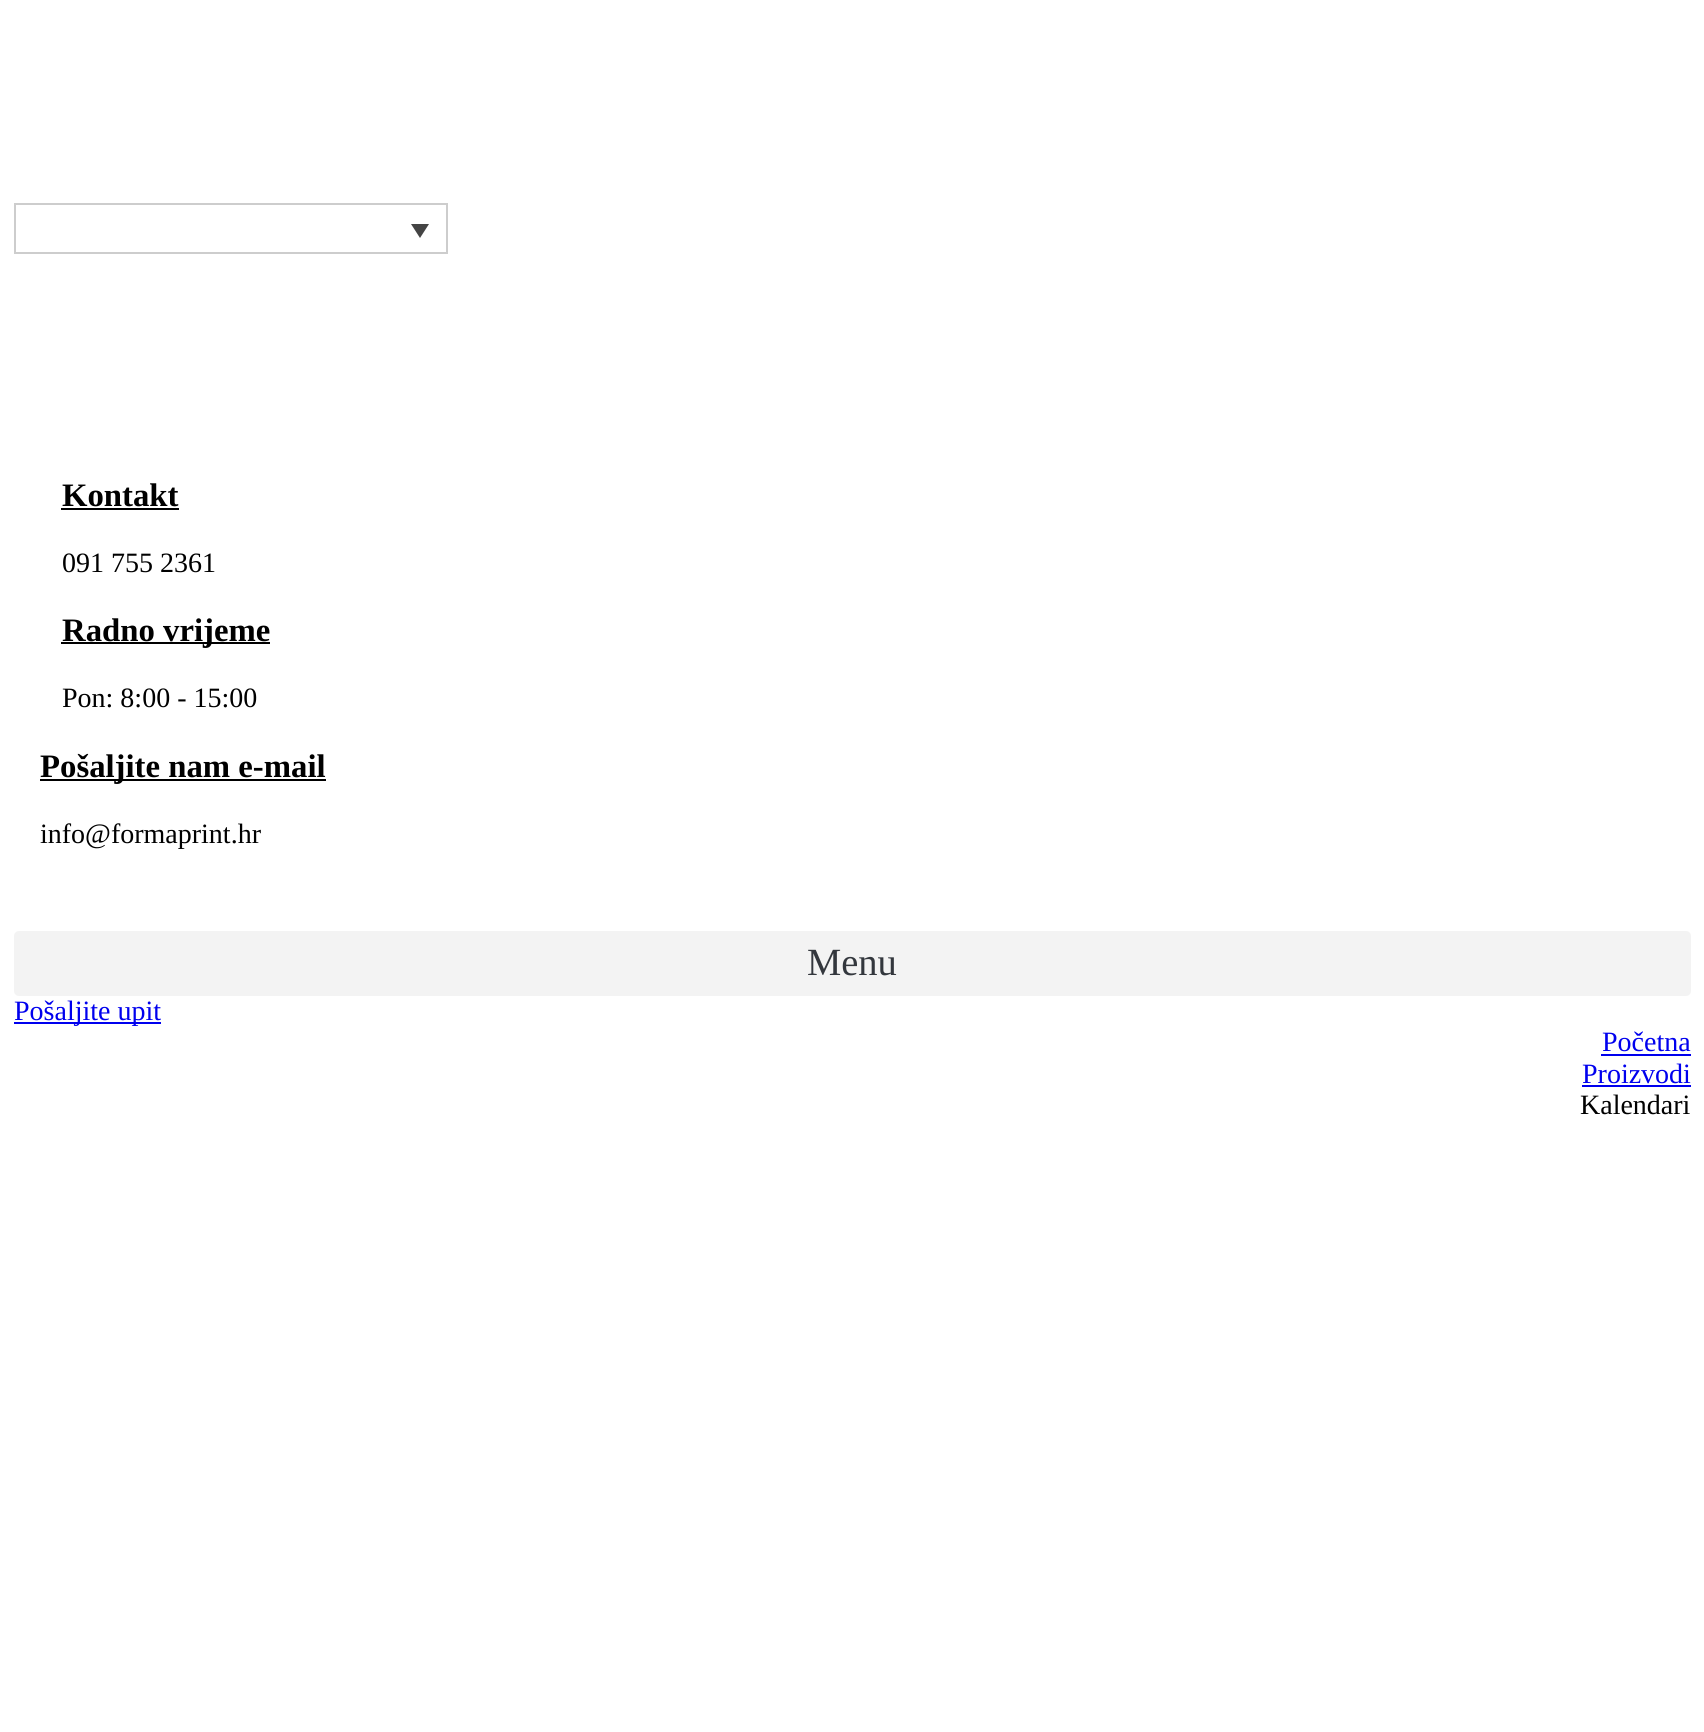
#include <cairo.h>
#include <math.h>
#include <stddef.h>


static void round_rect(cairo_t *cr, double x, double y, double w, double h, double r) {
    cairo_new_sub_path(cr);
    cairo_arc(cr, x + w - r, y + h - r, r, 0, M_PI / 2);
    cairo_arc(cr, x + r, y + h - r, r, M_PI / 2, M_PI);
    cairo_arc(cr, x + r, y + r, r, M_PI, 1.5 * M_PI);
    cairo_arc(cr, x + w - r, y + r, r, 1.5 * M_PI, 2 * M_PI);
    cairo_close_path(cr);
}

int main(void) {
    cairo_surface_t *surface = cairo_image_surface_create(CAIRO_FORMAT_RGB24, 1704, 1732);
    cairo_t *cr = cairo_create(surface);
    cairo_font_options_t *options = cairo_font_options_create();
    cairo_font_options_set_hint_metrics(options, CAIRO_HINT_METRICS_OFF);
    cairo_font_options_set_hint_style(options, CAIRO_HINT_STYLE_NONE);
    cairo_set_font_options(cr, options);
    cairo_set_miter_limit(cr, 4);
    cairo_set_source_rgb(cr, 1, 1, 1);
    cairo_paint(cr);
    cairo_rectangle(cr, 15, 204, 432, 49);
    cairo_set_source_rgb(cr, 0.804, 0.804, 0.804);
    cairo_stroke(cr);
    cairo_set_source_rgb(cr, 0.267, 0.267, 0.267);
    cairo_new_path(cr);
    cairo_move_to(cr, 411, 224);
    cairo_line_to(cr, 429, 224);
    cairo_line_to(cr, 420, 238);
    cairo_close_path(cr);
    cairo_fill(cr);
    cairo_select_font_face(cr, "Liberation Serif", CAIRO_FONT_SLANT_NORMAL, CAIRO_FONT_WEIGHT_BOLD);
    cairo_set_font_size(cr, 32.75);
    cairo_set_source_rgb(cr, 0, 0, 0);
    cairo_move_to(cr, 62, 506);
    cairo_show_text(cr, "Kontakt");
    cairo_rectangle(cr, 61, 508, 118, 2);
    cairo_fill(cr);
    cairo_select_font_face(cr, "Liberation Serif", CAIRO_FONT_SLANT_NORMAL, CAIRO_FONT_WEIGHT_NORMAL);
    cairo_set_font_size(cr, 28);
    cairo_move_to(cr, 62, 572);
    cairo_show_text(cr, "091 755 2361");
    cairo_rectangle(cr, 61, 642, 209, 2);
    cairo_fill(cr);
    cairo_select_font_face(cr, "Liberation Serif", CAIRO_FONT_SLANT_NORMAL, CAIRO_FONT_WEIGHT_BOLD);
    cairo_set_font_size(cr, 32.75);
    cairo_move_to(cr, 62, 641);
    cairo_show_text(cr, "Radno vrijeme");
    cairo_select_font_face(cr, "Liberation Serif", CAIRO_FONT_SLANT_NORMAL, CAIRO_FONT_WEIGHT_NORMAL);
    cairo_set_font_size(cr, 28);
    cairo_move_to(cr, 62, 707);
    cairo_show_text(cr, "Pon: 8:00 - 15:00");
    cairo_rectangle(cr, 40, 779, 286, 2);
    cairo_fill(cr);
    cairo_select_font_face(cr, "Liberation Serif", CAIRO_FONT_SLANT_NORMAL, CAIRO_FONT_WEIGHT_BOLD);
    cairo_set_font_size(cr, 32.75);
    cairo_move_to(cr, 40, 777);
    cairo_show_text(cr, "Pošaljite nam e-mail");
    cairo_select_font_face(cr, "Liberation Serif", CAIRO_FONT_SLANT_NORMAL, CAIRO_FONT_WEIGHT_NORMAL);
    cairo_set_font_size(cr, 28);
    cairo_move_to(cr, 40, 843);
    cairo_show_text(cr, "info@formaprint.hr");
    cairo_set_source_rgb(cr, 0.953, 0.953, 0.953);
    round_rect(cr, 14, 931, 1677, 65, 5);
    cairo_fill(cr);
    cairo_set_font_size(cr, 38.5);
    cairo_set_source_rgb(cr, 0.2, 0.216, 0.239);
    cairo_move_to(cr, 807, 975);
    cairo_show_text(cr, "Menu");
    cairo_set_source_rgb(cr, 0, 0, 0.933);
    cairo_rectangle(cr, 14, 1022, 147, 2);
    cairo_fill(cr);
    cairo_set_font_size(cr, 28);
    cairo_move_to(cr, 14, 1020);
    cairo_show_text(cr, "Pošaljite upit");
    cairo_move_to(cr, 1602, 1051);
    cairo_show_text(cr, "Početna");
    cairo_rectangle(cr, 1601, 1054, 90, 2);
    cairo_fill(cr);
    cairo_move_to(cr, 1582, 1083);
    cairo_show_text(cr, "Proizvodi");
    cairo_rectangle(cr, 1582, 1085, 109, 2);
    cairo_fill(cr);
    cairo_set_source_rgb(cr, 0, 0, 0);
    cairo_move_to(cr, 1580, 1114);
    cairo_show_text(cr, "Kalendari");
    cairo_surface_write_to_png(surface, "page.png");
    cairo_font_options_destroy(options);
    cairo_destroy(cr);
    cairo_surface_destroy(surface);
    return 0;
}
